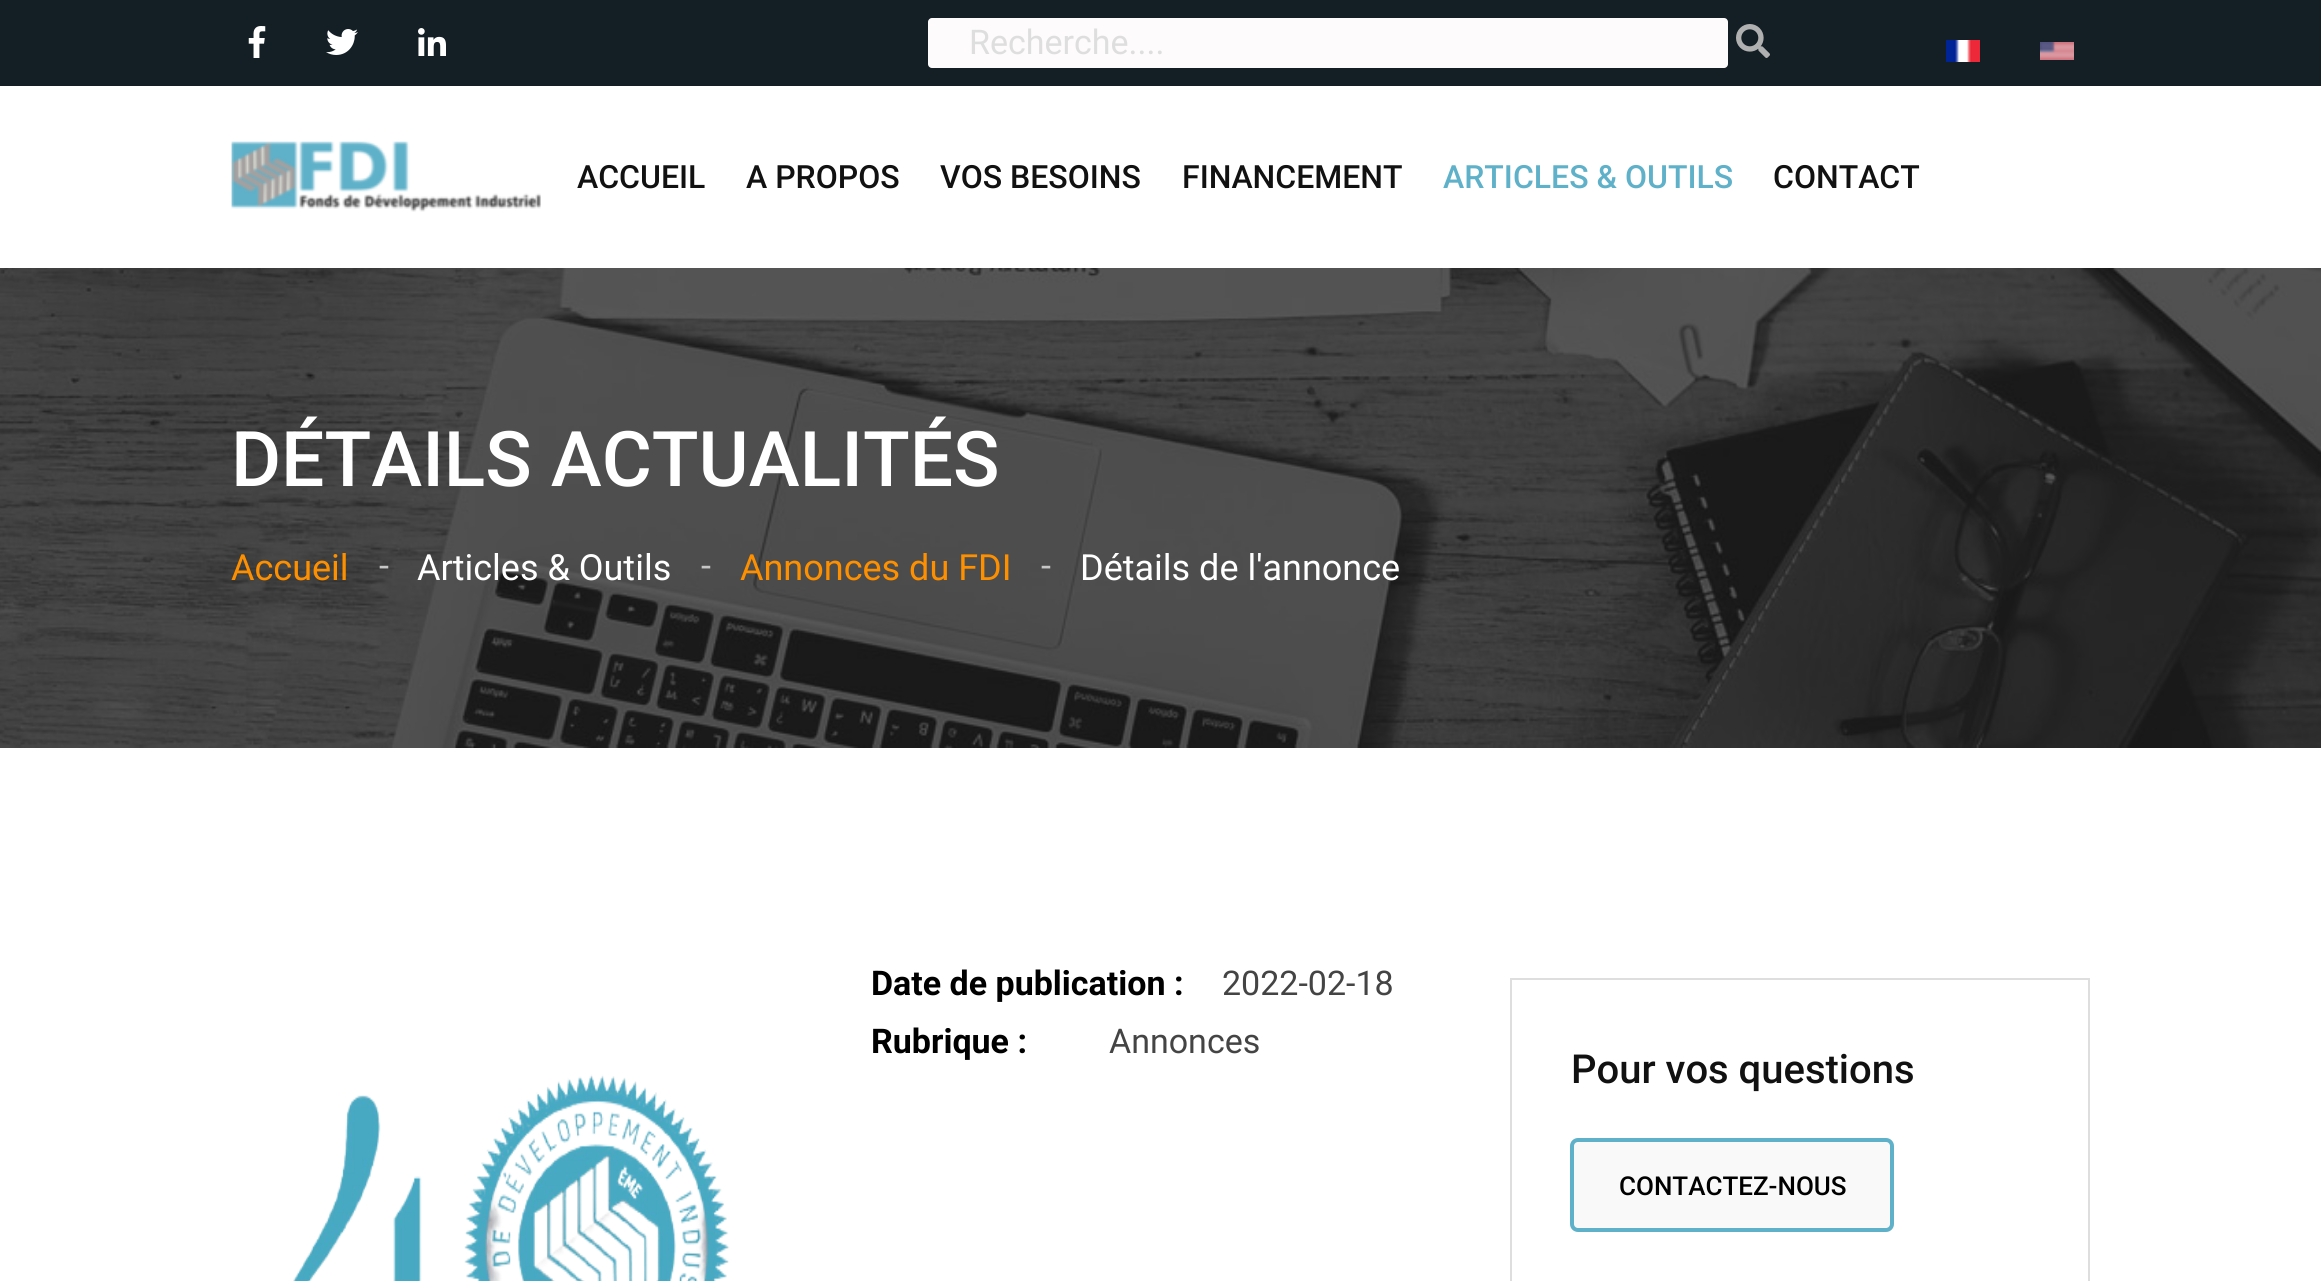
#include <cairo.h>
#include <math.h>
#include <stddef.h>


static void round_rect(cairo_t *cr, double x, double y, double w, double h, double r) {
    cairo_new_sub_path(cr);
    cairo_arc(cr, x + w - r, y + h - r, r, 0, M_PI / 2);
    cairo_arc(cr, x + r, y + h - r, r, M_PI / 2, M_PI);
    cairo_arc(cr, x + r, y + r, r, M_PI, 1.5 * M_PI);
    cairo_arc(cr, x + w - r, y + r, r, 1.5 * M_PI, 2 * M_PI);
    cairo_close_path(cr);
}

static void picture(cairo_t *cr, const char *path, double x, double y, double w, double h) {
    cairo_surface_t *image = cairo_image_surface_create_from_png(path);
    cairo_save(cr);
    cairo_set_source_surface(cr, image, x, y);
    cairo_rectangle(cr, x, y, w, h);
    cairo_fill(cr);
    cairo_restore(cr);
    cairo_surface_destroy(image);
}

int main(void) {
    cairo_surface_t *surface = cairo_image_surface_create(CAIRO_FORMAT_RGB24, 2321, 1281);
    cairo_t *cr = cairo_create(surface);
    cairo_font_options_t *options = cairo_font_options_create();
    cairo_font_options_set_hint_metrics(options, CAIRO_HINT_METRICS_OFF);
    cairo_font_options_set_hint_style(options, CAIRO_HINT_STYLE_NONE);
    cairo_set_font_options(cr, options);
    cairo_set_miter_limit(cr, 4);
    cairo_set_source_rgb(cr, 1, 1, 1);
    cairo_paint(cr);
    cairo_set_source_rgb(cr, 0.078, 0.122, 0.145);
    cairo_rectangle(cr, 0, 0, 2321, 86);
    cairo_fill(cr);
    picture(cr, "img1.png", 248, 26, 18, 32);
    picture(cr, "img2.png", 326, 29, 32, 26);
    picture(cr, "img3.png", 418, 28, 28, 28);
    cairo_set_source_rgb(cr, 0.992, 0.984, 0.984);
    round_rect(cr, 928, 18, 800, 50, 4);
    cairo_fill(cr);
    cairo_select_font_face(cr, "Roboto", CAIRO_FONT_SLANT_NORMAL, CAIRO_FONT_WEIGHT_NORMAL);
    cairo_set_font_size(cr, 34);
    cairo_set_source_rgb(cr, 0.871, 0.871, 0.871);
    cairo_move_to(cr, 969, 54);
    cairo_show_text(cr, "Recherche....");
    picture(cr, "img4.png", 1736, 24, 34, 34);
    picture(cr, "img5.png", 1946, 40, 34, 22);
    picture(cr, "img6.png", 2040, 42, 34, 18);
    picture(cr, "img7.png", 231, 141, 310, 71);
    cairo_select_font_face(cr, "Roboto Medium", CAIRO_FONT_SLANT_NORMAL, CAIRO_FONT_WEIGHT_NORMAL);
    cairo_set_font_size(cr, 32);
    cairo_set_source_rgb(cr, 0.067, 0.067, 0.067);
    cairo_move_to(cr, 577, 188);
    cairo_show_text(cr, "ACCUEIL");
    cairo_move_to(cr, 746, 188);
    cairo_show_text(cr, "A PROPOS");
    cairo_move_to(cr, 940, 188);
    cairo_show_text(cr, "VOS BESOINS");
    cairo_move_to(cr, 1182, 188);
    cairo_show_text(cr, "FINANCEMENT");
    cairo_set_source_rgb(cr, 0.373, 0.694, 0.788);
    cairo_move_to(cr, 1443, 188);
    cairo_show_text(cr, "ARTICLES & OUTILS");
    cairo_set_source_rgb(cr, 0.067, 0.067, 0.067);
    cairo_move_to(cr, 1773, 188);
    cairo_show_text(cr, "CONTACT");
    picture(cr, "img8.png", 0, 268, 2321, 480);
    cairo_set_font_size(cr, 76.75);
    cairo_set_source_rgb(cr, 1, 1, 1);
    cairo_move_to(cr, 231, 486);
    cairo_show_text(cr, "DÉTAILS ACTUALITÉS");
    cairo_select_font_face(cr, "Roboto", CAIRO_FONT_SLANT_NORMAL, CAIRO_FONT_WEIGHT_NORMAL);
    cairo_set_font_size(cr, 36);
    cairo_set_source_rgb(cr, 0.996, 0.565, 0);
    cairo_move_to(cr, 231, 580);
    cairo_show_text(cr, "Accueil");
    cairo_set_source_rgb(cr, 0.776, 0.776, 0.776);
    cairo_move_to(cr, 379, 578);
    cairo_show_text(cr, "-");
    cairo_set_source_rgb(cr, 1, 1, 1);
    cairo_move_to(cr, 417, 580);
    cairo_show_text(cr, "Articles & Outils");
    cairo_set_source_rgb(cr, 0.776, 0.776, 0.776);
    cairo_move_to(cr, 701, 578);
    cairo_show_text(cr, "-");
    cairo_set_source_rgb(cr, 0.996, 0.565, 0);
    cairo_move_to(cr, 740, 580);
    cairo_show_text(cr, "Annonces du FDI");
    cairo_set_source_rgb(cr, 0.776, 0.776, 0.776);
    cairo_move_to(cr, 1041, 578);
    cairo_show_text(cr, "-");
    cairo_set_source_rgb(cr, 1, 1, 1);
    cairo_move_to(cr, 1080, 580);
    cairo_show_text(cr, "Détails de l'annonce");
    cairo_select_font_face(cr, "Roboto", CAIRO_FONT_SLANT_NORMAL, CAIRO_FONT_WEIGHT_BOLD);
    cairo_set_font_size(cr, 34);
    cairo_set_source_rgb(cr, 0, 0, 0);
    cairo_move_to(cr, 871, 995);
    cairo_show_text(cr, "Date de publication :");
    cairo_select_font_face(cr, "Roboto", CAIRO_FONT_SLANT_NORMAL, CAIRO_FONT_WEIGHT_NORMAL);
    cairo_set_source_rgb(cr, 0.267, 0.267, 0.267);
    cairo_move_to(cr, 1222, 995);
    cairo_show_text(cr, "2022-02-18");
    cairo_select_font_face(cr, "Roboto", CAIRO_FONT_SLANT_NORMAL, CAIRO_FONT_WEIGHT_BOLD);
    cairo_set_source_rgb(cr, 0, 0, 0);
    cairo_move_to(cr, 871, 1053);
    cairo_show_text(cr, "Rubrique :");
    cairo_select_font_face(cr, "Roboto", CAIRO_FONT_SLANT_NORMAL, CAIRO_FONT_WEIGHT_NORMAL);
    cairo_set_source_rgb(cr, 0.267, 0.267, 0.267);
    cairo_move_to(cr, 1109, 1053);
    cairo_show_text(cr, "Annonces");
    picture(cr, "img9.png", 293, 1074, 437, 207);
    cairo_rectangle(cr, 1511, 979, 578, 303);
    cairo_set_source_rgb(cr, 0.871, 0.871, 0.871);
    cairo_stroke(cr);
    cairo_select_font_face(cr, "Roboto Medium", CAIRO_FONT_SLANT_NORMAL, CAIRO_FONT_WEIGHT_NORMAL);
    cairo_set_font_size(cr, 40);
    cairo_set_source_rgb(cr, 0.067, 0.067, 0.067);
    cairo_move_to(cr, 1571, 1083);
    cairo_show_text(cr, "Pour vos questions");
    cairo_set_source_rgb(cr, 0.973, 0.976, 0.98);
    round_rect(cr, 1572, 1140, 320, 90, 6);
    cairo_fill_preserve(cr);
    cairo_set_source_rgb(cr, 0.373, 0.694, 0.788);
    cairo_set_line_width(cr, 4);
    cairo_stroke(cr);
    cairo_set_font_size(cr, 26);
    cairo_set_source_rgb(cr, 0, 0, 0);
    cairo_move_to(cr, 1619, 1195);
    cairo_show_text(cr, "CONTACTEZ-NOUS");
    cairo_surface_write_to_png(surface, "page.png");
    cairo_font_options_destroy(options);
    cairo_destroy(cr);
    cairo_surface_destroy(surface);
    return 0;
}
